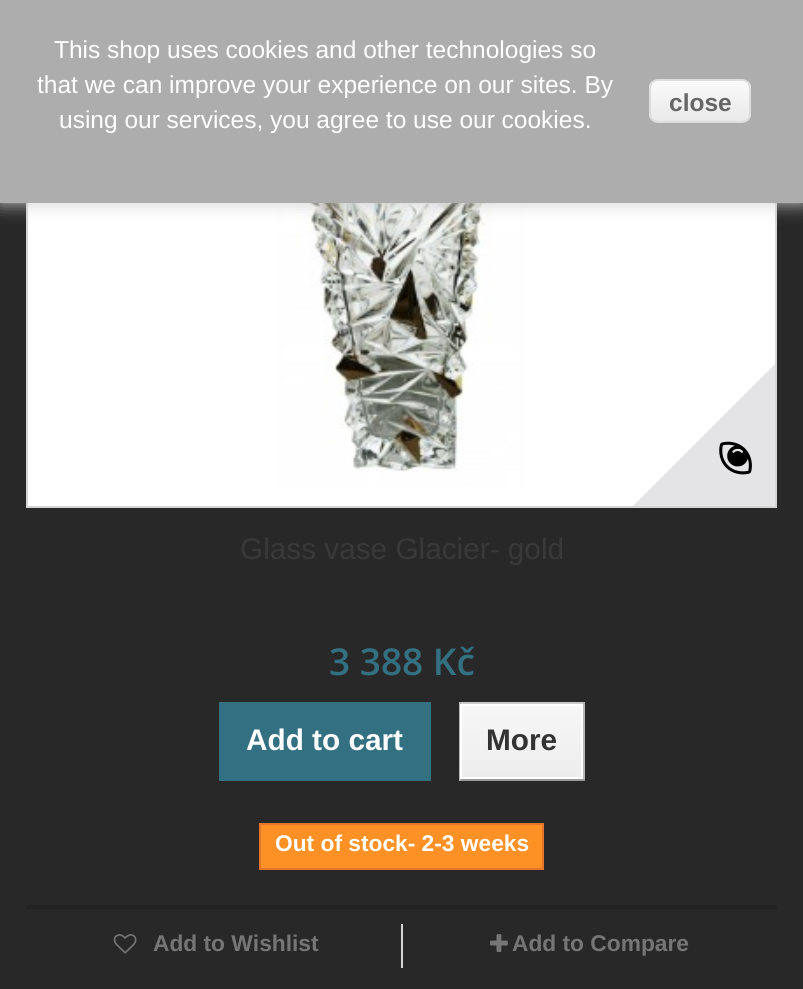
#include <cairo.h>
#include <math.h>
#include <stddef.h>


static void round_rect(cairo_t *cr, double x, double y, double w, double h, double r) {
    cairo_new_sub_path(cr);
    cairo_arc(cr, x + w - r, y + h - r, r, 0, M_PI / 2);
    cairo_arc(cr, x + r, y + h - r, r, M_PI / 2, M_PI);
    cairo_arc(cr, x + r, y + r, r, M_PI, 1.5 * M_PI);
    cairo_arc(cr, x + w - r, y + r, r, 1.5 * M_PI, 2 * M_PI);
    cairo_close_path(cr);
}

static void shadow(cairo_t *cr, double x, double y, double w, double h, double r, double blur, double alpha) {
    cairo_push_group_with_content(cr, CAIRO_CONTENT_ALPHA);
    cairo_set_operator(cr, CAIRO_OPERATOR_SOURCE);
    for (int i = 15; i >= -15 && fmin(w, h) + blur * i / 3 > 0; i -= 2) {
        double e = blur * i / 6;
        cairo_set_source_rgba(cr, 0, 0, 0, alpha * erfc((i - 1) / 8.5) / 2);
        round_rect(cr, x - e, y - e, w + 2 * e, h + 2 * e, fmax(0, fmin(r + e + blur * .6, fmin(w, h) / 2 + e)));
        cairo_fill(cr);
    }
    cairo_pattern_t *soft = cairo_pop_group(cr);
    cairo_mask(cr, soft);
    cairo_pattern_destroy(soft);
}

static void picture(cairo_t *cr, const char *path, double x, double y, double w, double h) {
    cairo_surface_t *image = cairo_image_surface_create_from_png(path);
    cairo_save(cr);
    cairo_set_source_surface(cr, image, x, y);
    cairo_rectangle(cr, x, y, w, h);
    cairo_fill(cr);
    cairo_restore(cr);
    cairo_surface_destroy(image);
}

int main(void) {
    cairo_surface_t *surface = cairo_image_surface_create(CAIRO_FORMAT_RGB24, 803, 989);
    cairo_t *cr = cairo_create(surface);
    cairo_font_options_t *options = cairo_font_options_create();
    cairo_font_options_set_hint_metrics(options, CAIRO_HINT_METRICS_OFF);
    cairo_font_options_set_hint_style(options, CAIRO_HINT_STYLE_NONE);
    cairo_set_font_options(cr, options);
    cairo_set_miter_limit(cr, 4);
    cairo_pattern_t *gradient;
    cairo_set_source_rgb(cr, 0.157, 0.157, 0.157);
    cairo_paint(cr);
    cairo_set_source_rgb(cr, 1, 1, 1);
    cairo_rectangle(cr, 28, 203, 747, 303);
    cairo_fill(cr);
    cairo_rectangle(cr, 27, 36, 749, 471);
    cairo_set_source_rgb(cr, 0.839, 0.831, 0.831);
    cairo_stroke(cr);
    picture(cr, "img1.png", 184, 203, 437, 287);
    cairo_set_source_rgb(cr, 0.812, 0.812, 0.812);
    shadow(cr, 0, 0, 803, 203, 0, 9, 1);
    cairo_set_source_rgb(cr, 0.678, 0.678, 0.678);
    cairo_rectangle(cr, 0, 0, 803, 203);
    cairo_fill(cr);
    cairo_select_font_face(cr, "Liberation Sans", CAIRO_FONT_SLANT_NORMAL, CAIRO_FONT_WEIGHT_NORMAL);
    cairo_set_font_size(cr, 24.5);
    cairo_set_source_rgb(cr, 1, 1, 1);
    cairo_move_to(cr, 54, 58);
    cairo_show_text(cr, "This shop uses cookies and other technologies so");
    cairo_move_to(cr, 37, 93);
    cairo_show_text(cr, "that we can improve your experience on our sites. By");
    cairo_move_to(cr, 59, 128);
    cairo_show_text(cr, "using our services, you agree to use our cookies.");
    cairo_save(cr);
    round_rect(cr, 649, 79, 102, 44, 9);
    cairo_clip(cr);
    gradient = cairo_pattern_create_linear(651, 81, 651, 121);
    cairo_pattern_add_color_stop_rgba(gradient, 0.05, 0.976, 0.976, 0.976, 1);
    cairo_pattern_add_color_stop_rgba(gradient, 1, 0.914, 0.914, 0.914, 1);
    cairo_set_source(cr, gradient);
    cairo_pattern_destroy(gradient);
    cairo_rectangle(cr, 649, 81, 102, 40);
    cairo_fill(cr);
    cairo_restore(cr);
    cairo_new_path(cr);
    cairo_move_to(cr, 658, 82);
    cairo_line_to(cr, 742, 82);
    cairo_curve_to(cr, 746, 82, 749, 85, 749, 89);
    cairo_curve_to(cr, 749, 78, 735, 81, 728, 81);
    cairo_line_to(cr, 672, 81);
    cairo_curve_to(cr, 665, 81, 651, 78, 651, 89);
    cairo_curve_to(cr, 651, 85, 654, 82, 658, 82);
    cairo_close_path(cr);
    cairo_fill(cr);
    round_rect(cr, 650, 80, 100, 42, 8);
    cairo_set_source_rgb(cr, 0.863, 0.863, 0.863);
    cairo_stroke(cr);
    cairo_select_font_face(cr, "Liberation Sans", CAIRO_FONT_SLANT_NORMAL, CAIRO_FONT_WEIGHT_BOLD);
    cairo_set_source_rgb(cr, 0.4, 0.4, 0.4);
    cairo_move_to(cr, 669, 111);
    cairo_show_text(cr, "close");
    cairo_save(cr);
    cairo_rectangle(cr, 399, 235, 376, 271);
    cairo_clip(cr);
    cairo_set_source_rgb(cr, 0.894, 0.894, 0.902);
    cairo_new_path(cr);
    cairo_move_to(cr, 785, 354);
    cairo_line_to(cr, 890, 460);
    cairo_line_to(cr, 729, 621);
    cairo_line_to(cr, 624, 515);
    cairo_close_path(cr);
    cairo_fill(cr);
    cairo_restore(cr);
    picture(cr, "img2.png", 719, 441, 33, 34);
    cairo_select_font_face(cr, "Liberation Sans", CAIRO_FONT_SLANT_NORMAL, CAIRO_FONT_WEIGHT_NORMAL);
    cairo_set_font_size(cr, 29.75);
    cairo_set_source_rgb(cr, 0.227, 0.224, 0.224);
    cairo_move_to(cr, 240, 559);
    cairo_show_text(cr, "Glass vase Glacier- gold");
    cairo_select_font_face(cr, "Open Sans SemiBold", CAIRO_FONT_SLANT_NORMAL, CAIRO_FONT_WEIGHT_NORMAL);
    cairo_set_font_size(cr, 37);
    cairo_set_source_rgb(cr, 0.196, 0.439, 0.51);
    cairo_move_to(cr, 329, 675);
    cairo_show_text(cr, "3 388 Kč");
    cairo_rectangle(cr, 220, 703, 210, 77);
    cairo_stroke(cr);
    cairo_rectangle(cr, 221, 704, 208, 75);
    cairo_fill(cr);
    cairo_select_font_face(cr, "Liberation Sans", CAIRO_FONT_SLANT_NORMAL, CAIRO_FONT_WEIGHT_BOLD);
    cairo_set_font_size(cr, 29.75);
    cairo_set_source_rgb(cr, 1, 1, 1);
    cairo_move_to(cr, 246, 750);
    cairo_show_text(cr, "Add to cart");
    cairo_set_source_rgb(cr, 0.792, 0.792, 0.792);
    cairo_rectangle(cr, 459, 702, 126, 2);
    cairo_fill(cr);
    cairo_set_source_rgb(cr, 0.718, 0.718, 0.718);
    cairo_rectangle(cr, 583, 702, 2, 79);
    cairo_fill(cr);
    cairo_set_source_rgb(cr, 0.604, 0.604, 0.604);
    cairo_rectangle(cr, 459, 779, 126, 2);
    cairo_fill(cr);
    cairo_set_source_rgb(cr, 0.718, 0.718, 0.718);
    cairo_rectangle(cr, 459, 702, 2, 79);
    cairo_fill(cr);
    gradient = cairo_pattern_create_linear(522, 705, 522, 777);
    cairo_pattern_add_color_stop_rgba(gradient, 0, 0.969, 0.969, 0.969, 1);
    cairo_pattern_add_color_stop_rgba(gradient, 1, 0.929, 0.929, 0.929, 1);
    cairo_set_source(cr, gradient);
    cairo_pattern_destroy(gradient);
    cairo_rectangle(cr, 462, 706, 119, 71);
    cairo_fill(cr);
    cairo_rectangle(cr, 461, 705, 121, 73);
    cairo_set_source_rgb(cr, 1, 1, 1);
    cairo_stroke(cr);
    cairo_set_source_rgb(cr, 0.2, 0.2, 0.2);
    cairo_move_to(cr, 486, 750);
    cairo_show_text(cr, "More");
    cairo_set_source_rgb(cr, 0.996, 0.569, 0.149);
    cairo_rectangle(cr, 260, 824, 283, 45);
    cairo_fill_preserve(cr);
    cairo_set_source_rgb(cr, 0.894, 0.459, 0.169);
    cairo_stroke(cr);
    cairo_set_font_size(cr, 22.75);
    cairo_set_source_rgb(cr, 1, 1, 1);
    cairo_move_to(cr, 275, 851);
    cairo_show_text(cr, "Out of stock- 2-3 weeks");
    cairo_set_source_rgb(cr, 0.137, 0.137, 0.137);
    cairo_rectangle(cr, 26, 905, 751, 4);
    cairo_fill(cr);
    cairo_set_source_rgb(cr, 0.839, 0.831, 0.831);
    cairo_rectangle(cr, 401, 924, 2, 44);
    cairo_fill(cr);
    picture(cr, "img3.png", 113, 934, 24, 20);
    cairo_set_source_rgb(cr, 0.467, 0.463, 0.463);
    cairo_move_to(cr, 153, 951);
    cairo_show_text(cr, "Add to Wishlist");
    picture(cr, "img4.png", 490, 934, 18, 18);
    cairo_move_to(cr, 512, 951);
    cairo_show_text(cr, "Add to Compare");
    cairo_surface_write_to_png(surface, "page.png");
    cairo_font_options_destroy(options);
    cairo_destroy(cr);
    cairo_surface_destroy(surface);
    return 0;
}
